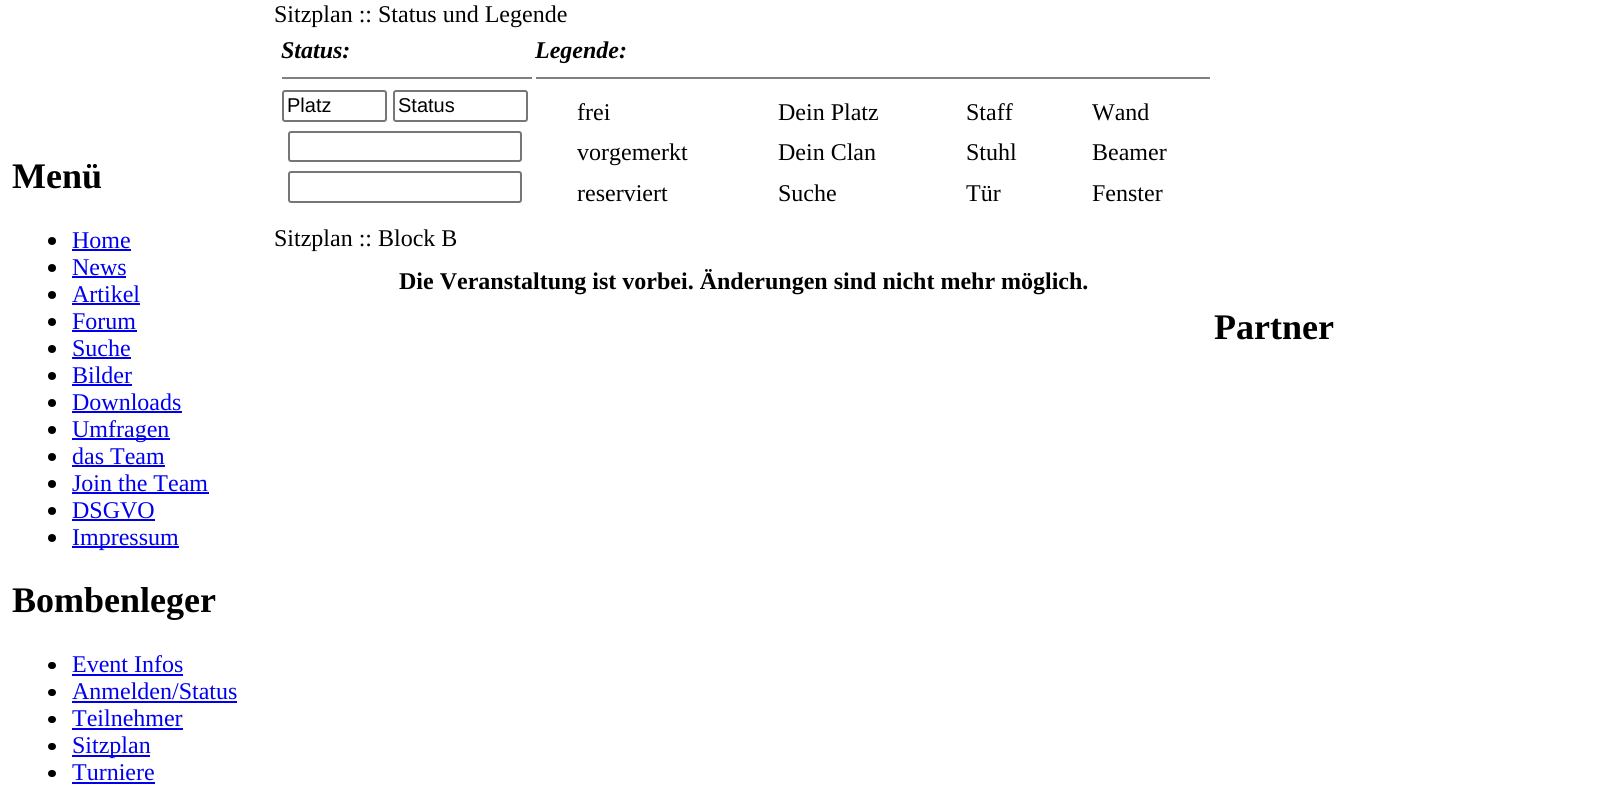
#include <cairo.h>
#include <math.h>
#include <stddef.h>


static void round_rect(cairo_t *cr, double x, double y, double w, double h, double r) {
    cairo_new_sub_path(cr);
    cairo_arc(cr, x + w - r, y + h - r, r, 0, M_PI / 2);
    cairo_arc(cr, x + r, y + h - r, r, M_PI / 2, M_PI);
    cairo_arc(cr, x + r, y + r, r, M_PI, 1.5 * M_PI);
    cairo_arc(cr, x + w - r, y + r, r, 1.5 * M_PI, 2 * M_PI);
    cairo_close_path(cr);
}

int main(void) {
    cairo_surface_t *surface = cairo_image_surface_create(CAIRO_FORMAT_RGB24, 1608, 797);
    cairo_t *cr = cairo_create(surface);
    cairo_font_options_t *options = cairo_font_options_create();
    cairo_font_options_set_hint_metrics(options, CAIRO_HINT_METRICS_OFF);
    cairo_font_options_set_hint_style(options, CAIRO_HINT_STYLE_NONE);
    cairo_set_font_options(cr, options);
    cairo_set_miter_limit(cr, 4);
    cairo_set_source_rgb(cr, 1, 1, 1);
    cairo_paint(cr);
    cairo_select_font_face(cr, "Liberation Serif", CAIRO_FONT_SLANT_NORMAL, CAIRO_FONT_WEIGHT_BOLD);
    cairo_set_font_size(cr, 36);
    cairo_set_source_rgb(cr, 0, 0, 0);
    cairo_move_to(cr, 12, 188);
    cairo_show_text(cr, "Menü");
    cairo_new_path(cr);
    cairo_arc(cr, 52, 241, 4, 0, 2 * M_PI);
    cairo_fill(cr);
    cairo_select_font_face(cr, "Liberation Serif", CAIRO_FONT_SLANT_NORMAL, CAIRO_FONT_WEIGHT_NORMAL);
    cairo_set_font_size(cr, 24);
    cairo_set_source_rgb(cr, 0, 0, 0.933);
    cairo_move_to(cr, 72, 248);
    cairo_show_text(cr, "Home");
    cairo_rectangle(cr, 72, 249, 59, 2);
    cairo_fill(cr);
    cairo_set_source_rgb(cr, 0, 0, 0);
    cairo_arc(cr, 52, 268, 4, 0, 2 * M_PI);
    cairo_fill(cr);
    cairo_set_source_rgb(cr, 0, 0, 0.933);
    cairo_move_to(cr, 72, 275);
    cairo_show_text(cr, "News");
    cairo_rectangle(cr, 72, 276, 54, 2);
    cairo_fill(cr);
    cairo_set_source_rgb(cr, 0, 0, 0);
    cairo_arc(cr, 52, 295, 4, 0, 2 * M_PI);
    cairo_fill(cr);
    cairo_set_source_rgb(cr, 0, 0, 0.933);
    cairo_move_to(cr, 72, 302);
    cairo_show_text(cr, "Artikel");
    cairo_rectangle(cr, 72, 303, 68, 2);
    cairo_fill(cr);
    cairo_set_source_rgb(cr, 0, 0, 0);
    cairo_arc(cr, 52, 322, 4, 0, 2 * M_PI);
    cairo_fill(cr);
    cairo_set_source_rgb(cr, 0, 0, 0.933);
    cairo_move_to(cr, 72, 329);
    cairo_show_text(cr, "Forum");
    cairo_rectangle(cr, 72, 330, 65, 2);
    cairo_fill(cr);
    cairo_set_source_rgb(cr, 0, 0, 0);
    cairo_arc(cr, 52, 349, 4, 0, 2 * M_PI);
    cairo_fill(cr);
    cairo_set_source_rgb(cr, 0, 0, 0.933);
    cairo_move_to(cr, 72, 356);
    cairo_show_text(cr, "Suche");
    cairo_rectangle(cr, 72, 357, 59, 2);
    cairo_fill(cr);
    cairo_set_source_rgb(cr, 0, 0, 0);
    cairo_arc(cr, 52, 376, 4, 0, 2 * M_PI);
    cairo_fill(cr);
    cairo_set_source_rgb(cr, 0, 0, 0.933);
    cairo_move_to(cr, 72, 383);
    cairo_show_text(cr, "Bilder");
    cairo_rectangle(cr, 72, 384, 60, 2);
    cairo_fill(cr);
    cairo_set_source_rgb(cr, 0, 0, 0);
    cairo_arc(cr, 52, 403, 4, 0, 2 * M_PI);
    cairo_fill(cr);
    cairo_set_source_rgb(cr, 0, 0, 0.933);
    cairo_move_to(cr, 72, 410);
    cairo_show_text(cr, "Downloads");
    cairo_rectangle(cr, 72, 411, 110, 2);
    cairo_fill(cr);
    cairo_set_source_rgb(cr, 0, 0, 0);
    cairo_arc(cr, 52, 430, 4, 0, 2 * M_PI);
    cairo_fill(cr);
    cairo_set_source_rgb(cr, 0, 0, 0.933);
    cairo_rectangle(cr, 72, 438, 98, 2);
    cairo_fill(cr);
    cairo_move_to(cr, 72, 437);
    cairo_show_text(cr, "Umfragen");
    cairo_set_source_rgb(cr, 0, 0, 0);
    cairo_new_path(cr);
    cairo_arc(cr, 52, 457, 4, 0, 2 * M_PI);
    cairo_fill(cr);
    cairo_set_source_rgb(cr, 0, 0, 0.933);
    cairo_move_to(cr, 72, 464);
    cairo_show_text(cr, "das Team");
    cairo_rectangle(cr, 72, 465, 93, 2);
    cairo_fill(cr);
    cairo_set_source_rgb(cr, 0, 0, 0);
    cairo_arc(cr, 52, 484, 4, 0, 2 * M_PI);
    cairo_fill(cr);
    cairo_set_source_rgb(cr, 0, 0, 0.933);
    cairo_move_to(cr, 72, 491);
    cairo_show_text(cr, "Join the Team");
    cairo_rectangle(cr, 72, 492, 137, 2);
    cairo_fill(cr);
    cairo_set_source_rgb(cr, 0, 0, 0);
    cairo_arc(cr, 52, 511, 4, 0, 2 * M_PI);
    cairo_fill(cr);
    cairo_set_source_rgb(cr, 0, 0, 0.933);
    cairo_move_to(cr, 72, 518);
    cairo_show_text(cr, "DSGVO");
    cairo_rectangle(cr, 72, 519, 83, 2);
    cairo_fill(cr);
    cairo_set_source_rgb(cr, 0, 0, 0);
    cairo_arc(cr, 52, 538, 4, 0, 2 * M_PI);
    cairo_fill(cr);
    cairo_set_source_rgb(cr, 0, 0, 0.933);
    cairo_rectangle(cr, 72, 546, 107, 2);
    cairo_fill(cr);
    cairo_move_to(cr, 72, 545);
    cairo_show_text(cr, "Impressum");
    cairo_select_font_face(cr, "Liberation Serif", CAIRO_FONT_SLANT_NORMAL, CAIRO_FONT_WEIGHT_BOLD);
    cairo_set_font_size(cr, 36);
    cairo_set_source_rgb(cr, 0, 0, 0);
    cairo_move_to(cr, 12, 612);
    cairo_show_text(cr, "Bombenleger");
    round_rect(cr, 48, 662, 8, 7, 3.5);
    cairo_fill(cr);
    cairo_select_font_face(cr, "Liberation Serif", CAIRO_FONT_SLANT_NORMAL, CAIRO_FONT_WEIGHT_NORMAL);
    cairo_set_font_size(cr, 24);
    cairo_set_source_rgb(cr, 0, 0, 0.933);
    cairo_move_to(cr, 72, 672);
    cairo_show_text(cr, "Event Infos");
    cairo_rectangle(cr, 72, 674, 111, 2);
    cairo_fill(cr);
    cairo_set_source_rgb(cr, 0, 0, 0);
    round_rect(cr, 48, 689, 8, 7, 3.5);
    cairo_fill(cr);
    cairo_set_source_rgb(cr, 0, 0, 0.933);
    cairo_move_to(cr, 72, 699);
    cairo_show_text(cr, "Anmelden/Status");
    cairo_rectangle(cr, 72, 701, 165, 2);
    cairo_fill(cr);
    cairo_set_source_rgb(cr, 0, 0, 0);
    round_rect(cr, 48, 716, 8, 7, 3.5);
    cairo_fill(cr);
    cairo_set_source_rgb(cr, 0, 0, 0.933);
    cairo_move_to(cr, 72, 726);
    cairo_show_text(cr, "Teilnehmer");
    cairo_rectangle(cr, 72, 728, 111, 2);
    cairo_fill(cr);
    cairo_set_source_rgb(cr, 0, 0, 0);
    round_rect(cr, 48, 743, 8, 7, 3.5);
    cairo_fill(cr);
    cairo_set_source_rgb(cr, 0, 0, 0.933);
    cairo_rectangle(cr, 72, 755, 78, 2);
    cairo_fill(cr);
    cairo_move_to(cr, 72, 753);
    cairo_show_text(cr, "Sitzplan");
    cairo_set_source_rgb(cr, 0, 0, 0);
    round_rect(cr, 48, 770, 8, 7, 3.5);
    cairo_fill(cr);
    cairo_set_source_rgb(cr, 0, 0, 0.933);
    cairo_move_to(cr, 72, 780);
    cairo_show_text(cr, "Turniere");
    cairo_rectangle(cr, 72, 782, 83, 2);
    cairo_fill(cr);
    cairo_set_source_rgb(cr, 0, 0, 0);
    cairo_move_to(cr, 274, 22);
    cairo_show_text(cr, "Sitzplan :: Status und Legende");
    cairo_select_font_face(cr, "Liberation Serif", CAIRO_FONT_SLANT_ITALIC, CAIRO_FONT_WEIGHT_BOLD);
    cairo_move_to(cr, 281, 58);
    cairo_show_text(cr, "Status:");
    cairo_set_source_rgb(cr, 0.502, 0.502, 0.502);
    cairo_rectangle(cr, 282, 77, 250, 2);
    cairo_fill(cr);
    round_rect(cr, 283, 91, 103, 30, 2);
    cairo_set_source_rgb(cr, 0.463, 0.463, 0.463);
    cairo_stroke(cr);
    cairo_select_font_face(cr, "Liberation Sans", CAIRO_FONT_SLANT_NORMAL, CAIRO_FONT_WEIGHT_NORMAL);
    cairo_set_font_size(cr, 20);
    cairo_set_source_rgb(cr, 0, 0, 0);
    cairo_move_to(cr, 287, 112);
    cairo_show_text(cr, "Platz");
    round_rect(cr, 394, 91, 133, 30, 2);
    cairo_set_source_rgb(cr, 0.463, 0.463, 0.463);
    cairo_stroke(cr);
    cairo_set_source_rgb(cr, 0, 0, 0);
    cairo_move_to(cr, 398, 112);
    cairo_show_text(cr, "Status");
    round_rect(cr, 289, 132, 232, 29, 2);
    cairo_set_source_rgb(cr, 0.463, 0.463, 0.463);
    cairo_stroke(cr);
    round_rect(cr, 289, 172, 232, 30, 2);
    cairo_stroke(cr);
    cairo_select_font_face(cr, "Liberation Serif", CAIRO_FONT_SLANT_ITALIC, CAIRO_FONT_WEIGHT_BOLD);
    cairo_set_font_size(cr, 24);
    cairo_set_source_rgb(cr, 0, 0, 0);
    cairo_move_to(cr, 535, 58);
    cairo_show_text(cr, "Legende:");
    cairo_set_source_rgb(cr, 0.502, 0.502, 0.502);
    cairo_rectangle(cr, 536, 77, 674, 2);
    cairo_fill(cr);
    cairo_select_font_face(cr, "Liberation Serif", CAIRO_FONT_SLANT_NORMAL, CAIRO_FONT_WEIGHT_NORMAL);
    cairo_set_source_rgb(cr, 0, 0, 0);
    cairo_move_to(cr, 577, 120);
    cairo_show_text(cr, "frei");
    cairo_move_to(cr, 577, 160);
    cairo_show_text(cr, "vorgemerkt");
    cairo_move_to(cr, 577, 201);
    cairo_show_text(cr, "reserviert");
    cairo_move_to(cr, 778, 120);
    cairo_show_text(cr, "Dein Platz");
    cairo_move_to(cr, 778, 160);
    cairo_show_text(cr, "Dein Clan");
    cairo_move_to(cr, 778, 201);
    cairo_show_text(cr, "Suche");
    cairo_move_to(cr, 966, 120);
    cairo_show_text(cr, "Staff");
    cairo_move_to(cr, 966, 160);
    cairo_show_text(cr, "Stuhl");
    cairo_move_to(cr, 966, 201);
    cairo_show_text(cr, "Tür");
    cairo_move_to(cr, 1092, 120);
    cairo_show_text(cr, "Wand");
    cairo_move_to(cr, 1092, 160);
    cairo_show_text(cr, "Beamer");
    cairo_move_to(cr, 1092, 201);
    cairo_show_text(cr, "Fenster");
    cairo_move_to(cr, 274, 246);
    cairo_show_text(cr, "Sitzplan :: Block B");
    cairo_select_font_face(cr, "Liberation Serif", CAIRO_FONT_SLANT_NORMAL, CAIRO_FONT_WEIGHT_BOLD);
    cairo_move_to(cr, 399, 289);
    cairo_show_text(cr, "Die Veranstaltung ist vorbei. Änderungen sind nicht mehr möglich.");
    cairo_set_font_size(cr, 36);
    cairo_move_to(cr, 1214, 339);
    cairo_show_text(cr, "Partner");
    cairo_surface_write_to_png(surface, "page.png");
    cairo_font_options_destroy(options);
    cairo_destroy(cr);
    cairo_surface_destroy(surface);
    return 0;
}
